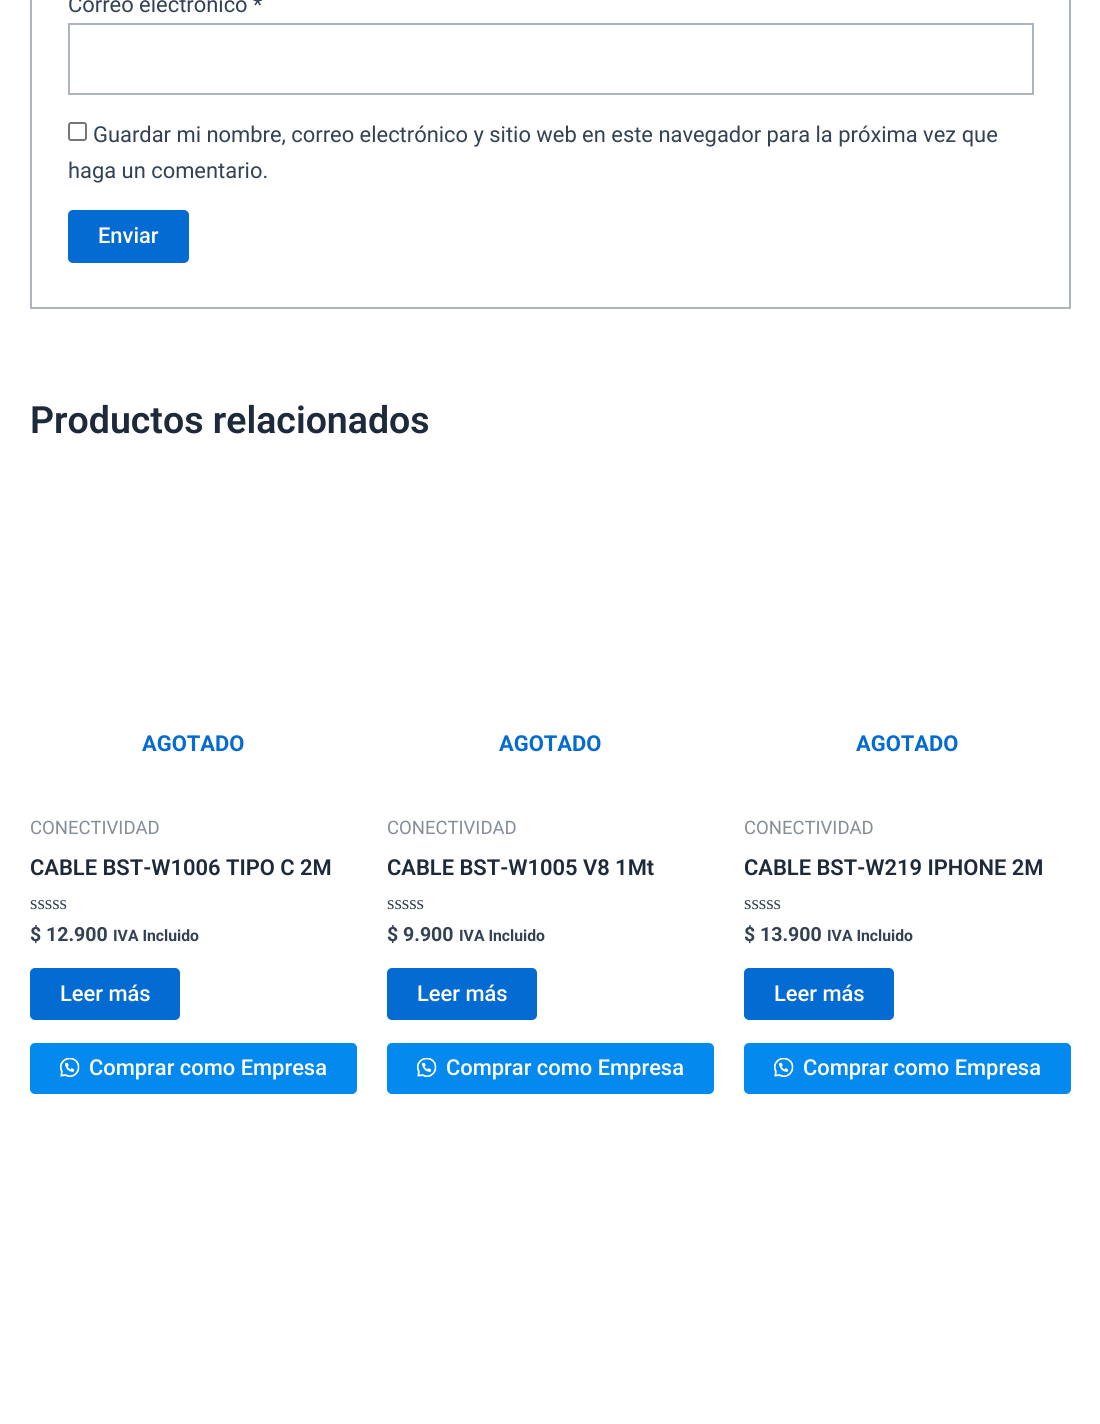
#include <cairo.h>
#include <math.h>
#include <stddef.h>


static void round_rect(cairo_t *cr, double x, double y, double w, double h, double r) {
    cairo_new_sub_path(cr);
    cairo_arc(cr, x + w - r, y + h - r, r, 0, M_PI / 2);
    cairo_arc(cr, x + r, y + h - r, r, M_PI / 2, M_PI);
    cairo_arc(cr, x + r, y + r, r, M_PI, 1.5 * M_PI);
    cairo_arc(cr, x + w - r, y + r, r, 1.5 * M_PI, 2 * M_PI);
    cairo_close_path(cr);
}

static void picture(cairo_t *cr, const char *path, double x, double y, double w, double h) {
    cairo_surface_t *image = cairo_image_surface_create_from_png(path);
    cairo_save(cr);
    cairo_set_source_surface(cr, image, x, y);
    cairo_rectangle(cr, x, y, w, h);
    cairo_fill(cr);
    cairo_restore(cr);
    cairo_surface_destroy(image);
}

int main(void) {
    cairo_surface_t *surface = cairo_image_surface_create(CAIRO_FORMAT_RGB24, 1100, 1424);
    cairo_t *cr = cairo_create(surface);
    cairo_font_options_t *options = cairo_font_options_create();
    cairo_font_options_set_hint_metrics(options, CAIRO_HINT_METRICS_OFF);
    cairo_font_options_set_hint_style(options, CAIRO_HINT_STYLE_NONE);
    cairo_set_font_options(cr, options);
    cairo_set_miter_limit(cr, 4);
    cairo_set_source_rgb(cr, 1, 1, 1);
    cairo_paint(cr);
    cairo_rectangle(cr, 31, -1, 1039, 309);
    cairo_set_source_rgb(cr, 0.678, 0.714, 0.745);
    cairo_stroke(cr);
    cairo_select_font_face(cr, "Roboto", CAIRO_FONT_SLANT_NORMAL, CAIRO_FONT_WEIGHT_NORMAL);
    cairo_set_font_size(cr, 21.9);
    cairo_set_source_rgb(cr, 0.2, 0.255, 0.333);
    cairo_move_to(cr, 68, 12);
    cairo_show_text(cr, "Correo electrónico *");
    cairo_rectangle(cr, 69, 24, 964, 70);
    cairo_set_source_rgb(cr, 0.678, 0.714, 0.745);
    cairo_stroke(cr);
    round_rect(cr, 69, 123, 17, 17, 2);
    cairo_set_source_rgb(cr, 0.463, 0.463, 0.463);
    cairo_stroke(cr);
    cairo_set_source_rgb(cr, 0.2, 0.255, 0.333);
    cairo_move_to(cr, 93, 142);
    cairo_show_text(cr, "Guardar mi nombre, correo electrónico y sitio web en este navegador para la próxima vez que");
    cairo_move_to(cr, 68, 178);
    cairo_show_text(cr, "haga un comentario.");
    cairo_set_source_rgb(cr, 0.016, 0.42, 0.824);
    round_rect(cr, 68, 210, 121, 53, 5);
    cairo_fill(cr);
    cairo_select_font_face(cr, "Roboto Medium", CAIRO_FONT_SLANT_NORMAL, CAIRO_FONT_WEIGHT_NORMAL);
    cairo_set_source_rgb(cr, 1, 1, 1);
    cairo_move_to(cr, 98, 243);
    cairo_show_text(cr, "Enviar");
    cairo_select_font_face(cr, "Roboto SemiBold", CAIRO_FONT_SLANT_NORMAL, CAIRO_FONT_WEIGHT_NORMAL);
    cairo_set_font_size(cr, 37.5);
    cairo_set_source_rgb(cr, 0.118, 0.161, 0.231);
    cairo_move_to(cr, 30, 433);
    cairo_show_text(cr, "Productos relacionados");
    cairo_select_font_face(cr, "Roboto", CAIRO_FONT_SLANT_NORMAL, CAIRO_FONT_WEIGHT_BOLD);
    cairo_set_font_size(cr, 21.9);
    cairo_set_source_rgb(cr, 0.016, 0.42, 0.824);
    cairo_move_to(cr, 142, 751);
    cairo_show_text(cr, "AGOTADO");
    cairo_select_font_face(cr, "Roboto", CAIRO_FONT_SLANT_NORMAL, CAIRO_FONT_WEIGHT_NORMAL);
    cairo_set_font_size(cr, 18.5);
    cairo_set_source_rgb(cr, 0.522, 0.553, 0.6);
    cairo_move_to(cr, 30, 834);
    cairo_show_text(cr, "CONECTIVIDAD");
    cairo_select_font_face(cr, "Roboto SemiBold", CAIRO_FONT_SLANT_NORMAL, CAIRO_FONT_WEIGHT_NORMAL);
    cairo_set_font_size(cr, 21.9);
    cairo_set_source_rgb(cr, 0.118, 0.161, 0.231);
    cairo_move_to(cr, 30, 875);
    cairo_show_text(cr, "CABLE BST-W1006 TIPO C 2M");
    cairo_select_font_face(cr, "Liberation Serif", CAIRO_FONT_SLANT_NORMAL, CAIRO_FONT_WEIGHT_NORMAL);
    cairo_set_font_size(cr, 19);
    cairo_set_source_rgb(cr, 0.2, 0.255, 0.333);
    cairo_move_to(cr, 30, 909);
    cairo_show_text(cr, "sssss");
    cairo_select_font_face(cr, "Roboto", CAIRO_FONT_SLANT_NORMAL, CAIRO_FONT_WEIGHT_BOLD);
    cairo_set_font_size(cr, 19.5);
    cairo_move_to(cr, 30, 941);
    cairo_show_text(cr, "$ 12.900");
    cairo_set_font_size(cr, 15.75);
    cairo_move_to(cr, 113, 941);
    cairo_show_text(cr, "IVA Incluido");
    cairo_set_source_rgb(cr, 0.016, 0.42, 0.824);
    round_rect(cr, 30, 968, 150, 52, 5);
    cairo_fill(cr);
    cairo_select_font_face(cr, "Roboto Medium", CAIRO_FONT_SLANT_NORMAL, CAIRO_FONT_WEIGHT_NORMAL);
    cairo_set_font_size(cr, 21.9);
    cairo_set_source_rgb(cr, 1, 1, 1);
    cairo_move_to(cr, 60, 1001);
    cairo_show_text(cr, "Leer más");
    cairo_set_source_rgb(cr, 0.016, 0.537, 0.937);
    round_rect(cr, 30, 1043, 327, 51, 5);
    cairo_fill(cr);
    picture(cr, "img1.png", 60, 1058, 20, 19);
    cairo_set_source_rgb(cr, 1, 1, 1);
    cairo_move_to(cr, 89, 1075);
    cairo_show_text(cr, "Comprar como Empresa");
    cairo_select_font_face(cr, "Roboto", CAIRO_FONT_SLANT_NORMAL, CAIRO_FONT_WEIGHT_BOLD);
    cairo_set_source_rgb(cr, 0.016, 0.42, 0.824);
    cairo_move_to(cr, 499, 751);
    cairo_show_text(cr, "AGOTADO");
    cairo_select_font_face(cr, "Roboto", CAIRO_FONT_SLANT_NORMAL, CAIRO_FONT_WEIGHT_NORMAL);
    cairo_set_font_size(cr, 18.5);
    cairo_set_source_rgb(cr, 0.522, 0.553, 0.6);
    cairo_move_to(cr, 387, 834);
    cairo_show_text(cr, "CONECTIVIDAD");
    cairo_select_font_face(cr, "Roboto SemiBold", CAIRO_FONT_SLANT_NORMAL, CAIRO_FONT_WEIGHT_NORMAL);
    cairo_set_font_size(cr, 21.9);
    cairo_set_source_rgb(cr, 0.118, 0.161, 0.231);
    cairo_move_to(cr, 387, 875);
    cairo_show_text(cr, "CABLE BST-W1005 V8 1Mt");
    cairo_select_font_face(cr, "Liberation Serif", CAIRO_FONT_SLANT_NORMAL, CAIRO_FONT_WEIGHT_NORMAL);
    cairo_set_font_size(cr, 19);
    cairo_set_source_rgb(cr, 0.2, 0.255, 0.333);
    cairo_move_to(cr, 387, 909);
    cairo_show_text(cr, "sssss");
    cairo_select_font_face(cr, "Roboto", CAIRO_FONT_SLANT_NORMAL, CAIRO_FONT_WEIGHT_BOLD);
    cairo_set_font_size(cr, 19.5);
    cairo_move_to(cr, 387, 941);
    cairo_show_text(cr, "$ 9.900");
    cairo_set_font_size(cr, 15.75);
    cairo_move_to(cr, 459, 941);
    cairo_show_text(cr, "IVA Incluido");
    cairo_set_source_rgb(cr, 0.016, 0.42, 0.824);
    round_rect(cr, 387, 968, 150, 52, 5);
    cairo_fill(cr);
    cairo_select_font_face(cr, "Roboto Medium", CAIRO_FONT_SLANT_NORMAL, CAIRO_FONT_WEIGHT_NORMAL);
    cairo_set_font_size(cr, 21.9);
    cairo_set_source_rgb(cr, 1, 1, 1);
    cairo_move_to(cr, 417, 1001);
    cairo_show_text(cr, "Leer más");
    cairo_set_source_rgb(cr, 0.016, 0.537, 0.937);
    round_rect(cr, 387, 1043, 327, 51, 5);
    cairo_fill(cr);
    picture(cr, "img1.png", 417, 1058, 20, 19);
    cairo_set_source_rgb(cr, 1, 1, 1);
    cairo_move_to(cr, 446, 1075);
    cairo_show_text(cr, "Comprar como Empresa");
    cairo_select_font_face(cr, "Roboto", CAIRO_FONT_SLANT_NORMAL, CAIRO_FONT_WEIGHT_BOLD);
    cairo_set_source_rgb(cr, 0.016, 0.42, 0.824);
    cairo_move_to(cr, 856, 751);
    cairo_show_text(cr, "AGOTADO");
    cairo_select_font_face(cr, "Roboto", CAIRO_FONT_SLANT_NORMAL, CAIRO_FONT_WEIGHT_NORMAL);
    cairo_set_font_size(cr, 18.5);
    cairo_set_source_rgb(cr, 0.522, 0.553, 0.6);
    cairo_move_to(cr, 744, 834);
    cairo_show_text(cr, "CONECTIVIDAD");
    cairo_select_font_face(cr, "Roboto SemiBold", CAIRO_FONT_SLANT_NORMAL, CAIRO_FONT_WEIGHT_NORMAL);
    cairo_set_font_size(cr, 21.9);
    cairo_set_source_rgb(cr, 0.118, 0.161, 0.231);
    cairo_move_to(cr, 744, 875);
    cairo_show_text(cr, "CABLE BST-W219 IPHONE 2M");
    cairo_select_font_face(cr, "Liberation Serif", CAIRO_FONT_SLANT_NORMAL, CAIRO_FONT_WEIGHT_NORMAL);
    cairo_set_font_size(cr, 19);
    cairo_set_source_rgb(cr, 0.2, 0.255, 0.333);
    cairo_move_to(cr, 744, 909);
    cairo_show_text(cr, "sssss");
    cairo_select_font_face(cr, "Roboto", CAIRO_FONT_SLANT_NORMAL, CAIRO_FONT_WEIGHT_BOLD);
    cairo_set_font_size(cr, 19.5);
    cairo_move_to(cr, 744, 941);
    cairo_show_text(cr, "$ 13.900");
    cairo_set_font_size(cr, 15.75);
    cairo_move_to(cr, 827, 941);
    cairo_show_text(cr, "IVA Incluido");
    cairo_set_source_rgb(cr, 0.016, 0.42, 0.824);
    round_rect(cr, 744, 968, 150, 52, 5);
    cairo_fill(cr);
    cairo_select_font_face(cr, "Roboto Medium", CAIRO_FONT_SLANT_NORMAL, CAIRO_FONT_WEIGHT_NORMAL);
    cairo_set_font_size(cr, 21.9);
    cairo_set_source_rgb(cr, 1, 1, 1);
    cairo_move_to(cr, 774, 1001);
    cairo_show_text(cr, "Leer más");
    cairo_set_source_rgb(cr, 0.016, 0.537, 0.937);
    round_rect(cr, 744, 1043, 327, 51, 5);
    cairo_fill(cr);
    picture(cr, "img2.png", 774, 1058, 20, 19);
    cairo_set_source_rgb(cr, 1, 1, 1);
    cairo_move_to(cr, 803, 1075);
    cairo_show_text(cr, "Comprar como Empresa");
    cairo_surface_write_to_png(surface, "page.png");
    cairo_font_options_destroy(options);
    cairo_destroy(cr);
    cairo_surface_destroy(surface);
    return 0;
}
